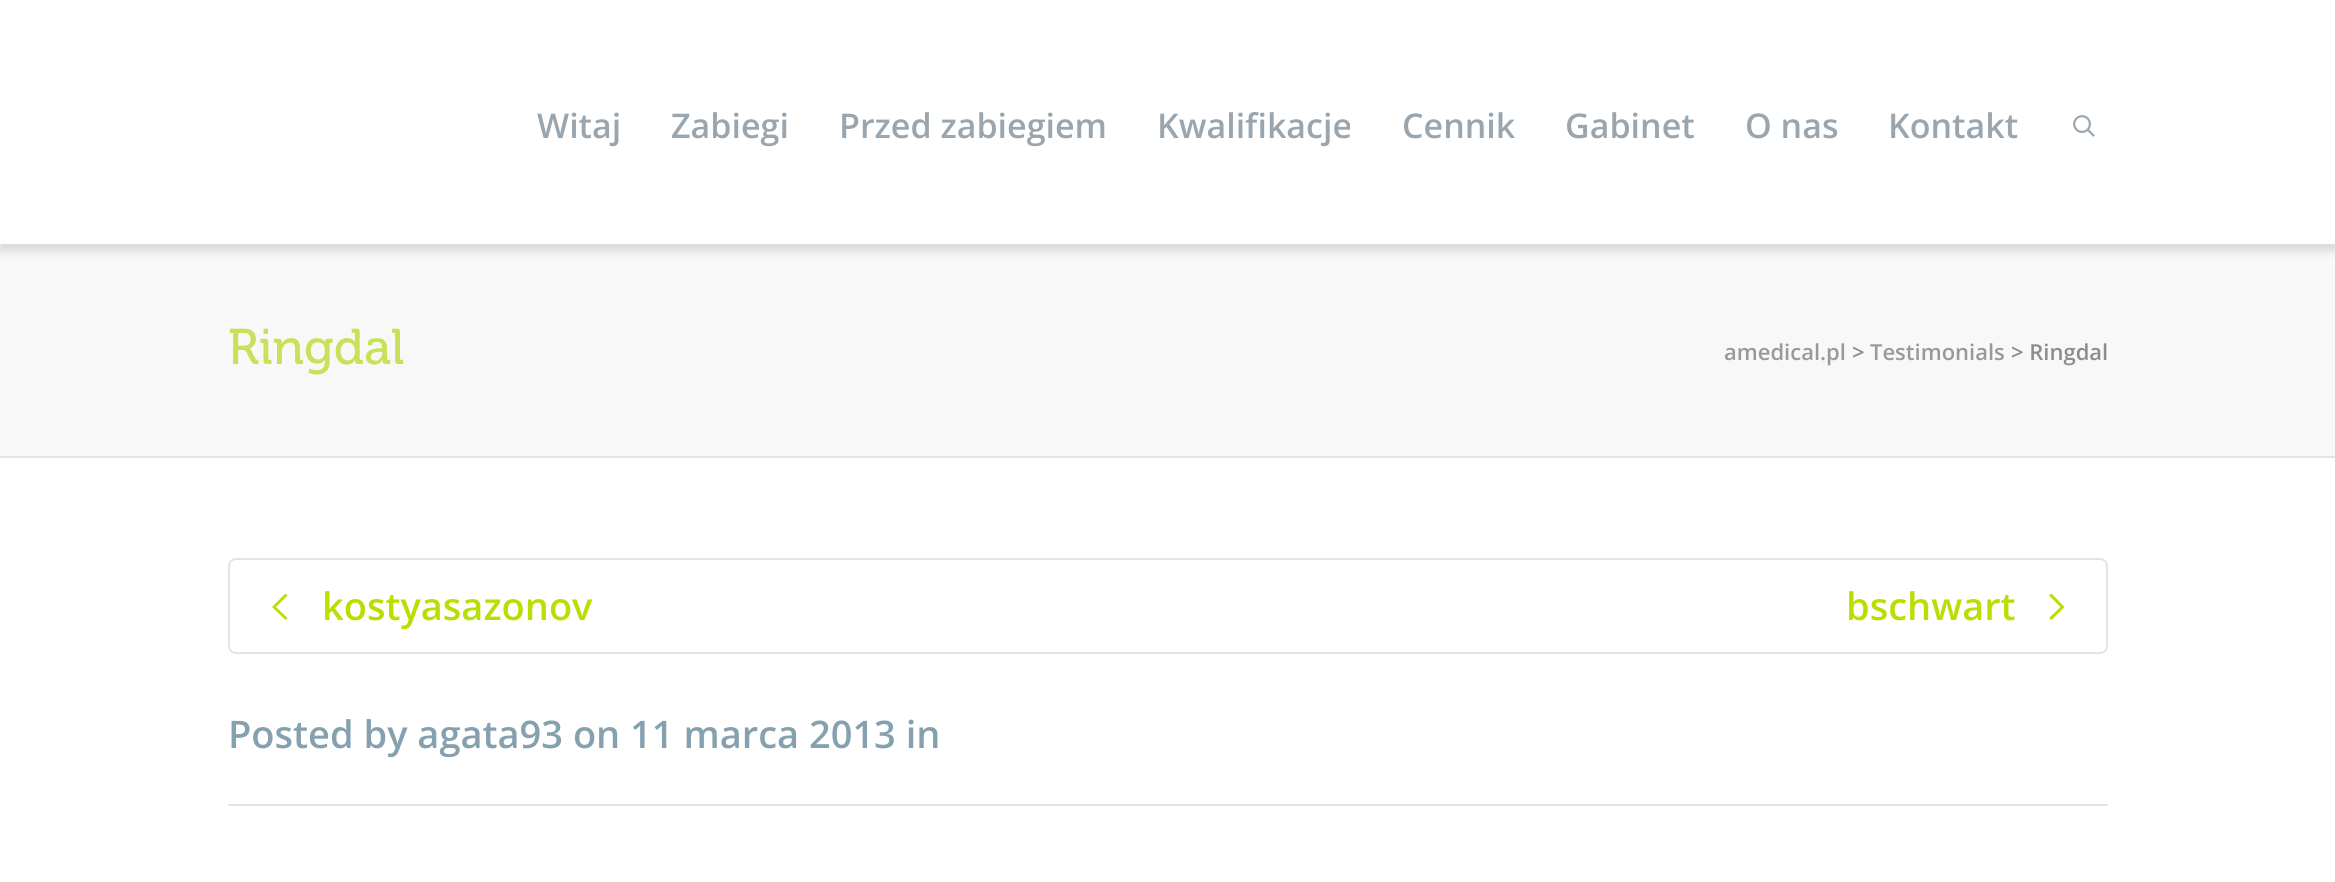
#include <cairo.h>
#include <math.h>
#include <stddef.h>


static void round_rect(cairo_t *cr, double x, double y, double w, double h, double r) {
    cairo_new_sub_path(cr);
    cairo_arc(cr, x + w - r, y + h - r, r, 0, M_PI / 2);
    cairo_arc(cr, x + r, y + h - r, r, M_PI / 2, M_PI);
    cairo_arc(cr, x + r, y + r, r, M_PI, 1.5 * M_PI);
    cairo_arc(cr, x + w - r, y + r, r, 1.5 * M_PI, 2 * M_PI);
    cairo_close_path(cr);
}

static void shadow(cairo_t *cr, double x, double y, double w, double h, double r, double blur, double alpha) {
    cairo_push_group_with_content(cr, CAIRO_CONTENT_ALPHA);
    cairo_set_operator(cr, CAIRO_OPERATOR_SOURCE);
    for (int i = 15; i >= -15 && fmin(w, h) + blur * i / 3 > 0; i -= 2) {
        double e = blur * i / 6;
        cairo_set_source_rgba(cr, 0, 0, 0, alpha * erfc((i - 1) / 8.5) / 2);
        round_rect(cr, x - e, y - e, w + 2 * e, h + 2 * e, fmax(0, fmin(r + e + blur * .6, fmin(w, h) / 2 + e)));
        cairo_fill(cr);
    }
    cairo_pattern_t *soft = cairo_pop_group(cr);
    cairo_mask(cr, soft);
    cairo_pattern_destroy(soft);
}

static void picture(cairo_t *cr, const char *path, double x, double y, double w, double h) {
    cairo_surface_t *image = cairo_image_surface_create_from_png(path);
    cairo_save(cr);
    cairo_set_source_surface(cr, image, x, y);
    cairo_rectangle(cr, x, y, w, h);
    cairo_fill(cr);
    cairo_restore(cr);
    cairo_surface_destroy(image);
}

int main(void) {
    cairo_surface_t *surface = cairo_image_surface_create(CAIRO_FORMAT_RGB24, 2335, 882);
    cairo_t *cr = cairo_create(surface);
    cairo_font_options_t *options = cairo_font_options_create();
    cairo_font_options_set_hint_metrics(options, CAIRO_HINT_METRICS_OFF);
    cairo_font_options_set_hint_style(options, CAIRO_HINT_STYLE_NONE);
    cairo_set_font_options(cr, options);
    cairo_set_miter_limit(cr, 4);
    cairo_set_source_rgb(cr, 1, 1, 1);
    cairo_paint(cr);
    cairo_set_source_rgb(cr, 0.969, 0.969, 0.969);
    cairo_rectangle(cr, 0, 244, 2335, 212);
    cairo_fill(cr);
    cairo_set_source_rgb(cr, 0, 0, 0);
    shadow(cr, 0, 6, 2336, 244, 0, 5, 0.1);
    shadow(cr, 0, 6, 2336, 244, 0, 5, 0.05);
    cairo_set_source_rgb(cr, 1, 1, 1);
    cairo_rectangle(cr, 0, 0, 2335, 244);
    cairo_fill(cr);
    cairo_select_font_face(cr, "Open Sans SemiBold", CAIRO_FONT_SLANT_NORMAL, CAIRO_FONT_WEIGHT_NORMAL);
    cairo_set_font_size(cr, 34);
    cairo_set_source_rgb(cr, 0.6, 0.651, 0.686);
    cairo_move_to(cr, 537, 138);
    cairo_show_text(cr, "Witaj");
    cairo_move_to(cr, 671, 138);
    cairo_show_text(cr, "Zabiegi");
    cairo_move_to(cr, 839, 138);
    cairo_show_text(cr, "Przed zabiegiem");
    cairo_move_to(cr, 1157, 138);
    cairo_show_text(cr, "Kwalifikacje");
    cairo_move_to(cr, 1402, 138);
    cairo_show_text(cr, "Cennik");
    cairo_move_to(cr, 1565, 138);
    cairo_show_text(cr, "Gabinet");
    cairo_move_to(cr, 1745, 138);
    cairo_show_text(cr, "O nas");
    cairo_move_to(cr, 1888, 138);
    cairo_show_text(cr, "Kontakt");
    picture(cr, "img1.png", 2073, 115, 22, 22);
    cairo_set_source_rgb(cr, 0.894, 0.894, 0.894);
    cairo_rectangle(cr, 0, 456, 2335, 2);
    cairo_fill(cr);
    cairo_select_font_face(cr, "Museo", CAIRO_FONT_SLANT_NORMAL, CAIRO_FONT_WEIGHT_NORMAL);
    cairo_set_font_size(cr, 50);
    cairo_set_source_rgb(cr, 0.78, 0.886, 0.345);
    cairo_move_to(cr, 228, 364);
    cairo_show_text(cr, "Ringdal");
    cairo_select_font_face(cr, "Open Sans SemiBold", CAIRO_FONT_SLANT_NORMAL, CAIRO_FONT_WEIGHT_NORMAL);
    cairo_set_font_size(cr, 22);
    cairo_set_source_rgb(cr, 0.6, 0.6, 0.6);
    cairo_move_to(cr, 1724, 360);
    cairo_show_text(cr, "amedical.pl");
    cairo_set_source_rgb(cr, 0.549, 0.549, 0.549);
    cairo_move_to(cr, 1852, 360);
    cairo_show_text(cr, ">");
    cairo_set_source_rgb(cr, 0.6, 0.6, 0.6);
    cairo_move_to(cr, 1870, 360);
    cairo_show_text(cr, "Testimonials");
    cairo_set_source_rgb(cr, 0.549, 0.549, 0.549);
    cairo_move_to(cr, 2011, 360);
    cairo_show_text(cr, "> Ringdal");
    round_rect(cr, 229, 559, 1878, 94, 7);
    cairo_set_source_rgb(cr, 0.894, 0.894, 0.894);
    cairo_stroke(cr);
    cairo_set_source_rgb(cr, 0.718, 0.878, 0);
    cairo_new_path(cr);
    cairo_move_to(cr, 285.5, 620);
    cairo_line_to(cr, 272, 607);
    cairo_line_to(cr, 285.5, 593.5);
    cairo_line_to(cr, 287.5, 595.5);
    cairo_line_to(cr, 276, 607);
    cairo_line_to(cr, 287.5, 618);
    cairo_close_path(cr);
    cairo_fill(cr);
    cairo_set_font_size(cr, 38);
    cairo_move_to(cr, 322, 620);
    cairo_show_text(cr, "kostyasazonov");
    cairo_move_to(cr, 1846, 620);
    cairo_show_text(cr, "bschwart");
    cairo_new_path(cr);
    cairo_move_to(cr, 2051.5, 620);
    cairo_line_to(cr, 2049, 618);
    cairo_line_to(cr, 2060.5, 607);
    cairo_line_to(cr, 2049, 595.5);
    cairo_line_to(cr, 2051.5, 593.5);
    cairo_line_to(cr, 2064.5, 607);
    cairo_close_path(cr);
    cairo_fill(cr);
    cairo_set_source_rgb(cr, 0.894, 0.894, 0.894);
    cairo_rectangle(cr, 228, 804, 1880, 2);
    cairo_fill(cr);
    cairo_set_source_rgb(cr, 0.522, 0.631, 0.686);
    cairo_move_to(cr, 228, 748);
    cairo_show_text(cr, "Posted by agata93 on 11 marca 2013 in");
    cairo_surface_write_to_png(surface, "page.png");
    cairo_font_options_destroy(options);
    cairo_destroy(cr);
    cairo_surface_destroy(surface);
    return 0;
}
